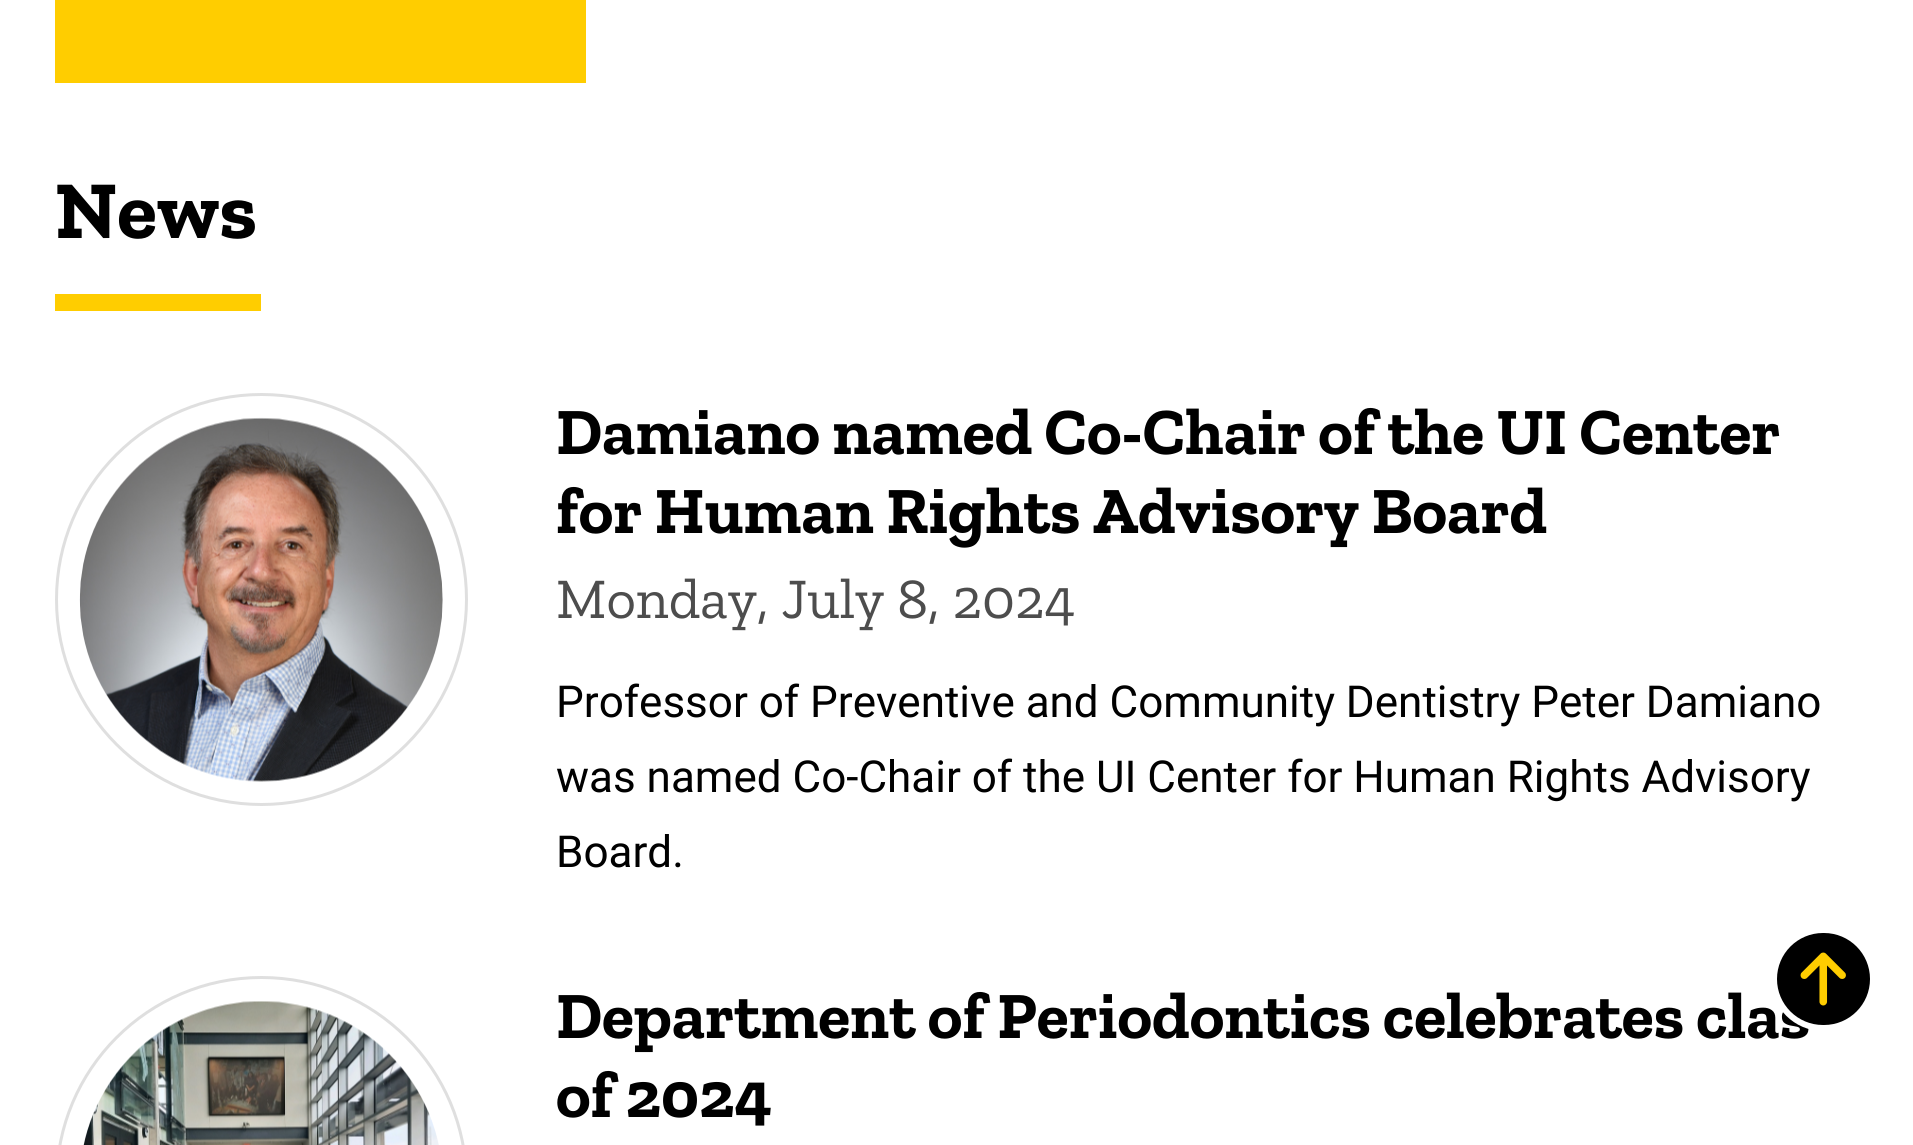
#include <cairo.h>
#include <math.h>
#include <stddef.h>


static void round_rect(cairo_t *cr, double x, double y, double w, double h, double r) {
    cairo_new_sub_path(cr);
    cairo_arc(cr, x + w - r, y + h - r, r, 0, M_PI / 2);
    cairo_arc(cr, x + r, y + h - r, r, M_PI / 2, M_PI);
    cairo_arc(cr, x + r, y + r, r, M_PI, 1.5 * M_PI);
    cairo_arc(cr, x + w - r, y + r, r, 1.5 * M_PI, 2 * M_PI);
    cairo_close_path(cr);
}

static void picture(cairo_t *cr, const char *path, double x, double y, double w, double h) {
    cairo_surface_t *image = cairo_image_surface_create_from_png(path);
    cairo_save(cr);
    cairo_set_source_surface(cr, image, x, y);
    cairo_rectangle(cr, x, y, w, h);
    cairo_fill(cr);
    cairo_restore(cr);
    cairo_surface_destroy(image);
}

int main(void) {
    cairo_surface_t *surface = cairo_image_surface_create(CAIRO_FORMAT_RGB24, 1913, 1145);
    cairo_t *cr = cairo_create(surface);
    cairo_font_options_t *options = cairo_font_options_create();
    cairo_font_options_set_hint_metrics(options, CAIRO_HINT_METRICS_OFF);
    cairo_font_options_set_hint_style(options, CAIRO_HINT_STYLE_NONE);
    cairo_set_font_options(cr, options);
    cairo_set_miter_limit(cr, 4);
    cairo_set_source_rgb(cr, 1, 1, 1);
    cairo_paint(cr);
    cairo_set_source_rgb(cr, 1, 0.804, 0);
    cairo_rectangle(cr, 55, 0, 531, 83);
    cairo_fill(cr);
    cairo_select_font_face(cr, "Zilla Slab", CAIRO_FONT_SLANT_NORMAL, CAIRO_FONT_WEIGHT_BOLD);
    cairo_set_font_size(cr, 82);
    cairo_set_source_rgb(cr, 0, 0, 0);
    cairo_move_to(cr, 55, 238);
    cairo_show_text(cr, "News");
    cairo_set_source_rgb(cr, 1, 0.804, 0);
    cairo_rectangle(cr, 55, 294, 206, 17);
    cairo_fill(cr);
    cairo_arc(cr, 261.5, 599.5, 205, 0, 2 * M_PI);
    cairo_set_source_rgb(cr, 0.875, 0.875, 0.875);
    cairo_set_line_width(cr, 3);
    cairo_stroke(cr);
    picture(cr, "img1.png", 79, 417, 364, 365);
    cairo_set_font_size(cr, 66);
    cairo_set_source_rgb(cr, 0, 0, 0);
    cairo_move_to(cr, 556, 454);
    cairo_show_text(cr, "Damiano named Co-Chair of the UI Center");
    cairo_move_to(cr, 556, 533);
    cairo_show_text(cr, "for Human Rights Advisory Board");
    cairo_select_font_face(cr, "Zilla Slab", CAIRO_FONT_SLANT_NORMAL, CAIRO_FONT_WEIGHT_NORMAL);
    cairo_set_font_size(cr, 57.25);
    cairo_set_source_rgb(cr, 0.302, 0.302, 0.302);
    cairo_move_to(cr, 556, 618);
    cairo_show_text(cr, "Monday, July 8, 2024");
    cairo_select_font_face(cr, "Roboto", CAIRO_FONT_SLANT_NORMAL, CAIRO_FONT_WEIGHT_NORMAL);
    cairo_set_font_size(cr, 44);
    cairo_set_source_rgb(cr, 0, 0, 0);
    cairo_move_to(cr, 556, 717);
    cairo_show_text(cr, "Professor of Preventive and Community Dentistry Peter Damiano");
    cairo_move_to(cr, 556, 792);
    cairo_show_text(cr, "was named Co-Chair of the UI Center for Human Rights Advisory");
    cairo_move_to(cr, 556, 867);
    cairo_show_text(cr, "Board.");
    round_rect(cr, 56.5, 977.5, 410, 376, 205);
    cairo_set_source_rgb(cr, 0.875, 0.875, 0.875);
    cairo_stroke(cr);
    picture(cr, "img2.png", 83, 1001, 356, 144);
    cairo_select_font_face(cr, "Zilla Slab", CAIRO_FONT_SLANT_NORMAL, CAIRO_FONT_WEIGHT_BOLD);
    cairo_set_font_size(cr, 66);
    cairo_set_source_rgb(cr, 0, 0, 0);
    cairo_move_to(cr, 556, 1038);
    cairo_show_text(cr, "Department of Periodontics celebrates clas");
    cairo_move_to(cr, 556, 1117);
    cairo_show_text(cr, "of 2024");
    round_rect(cr, 1774, 930, 99, 98, 49);
    cairo_fill_preserve(cr);
    cairo_set_source_rgb(cr, 1, 1, 1);
    cairo_set_line_width(cr, 6);
    cairo_stroke(cr);
    picture(cr, "img3.png", 1800, 952, 46, 54);
    cairo_surface_write_to_png(surface, "page.png");
    cairo_font_options_destroy(options);
    cairo_destroy(cr);
    cairo_surface_destroy(surface);
    return 0;
}
